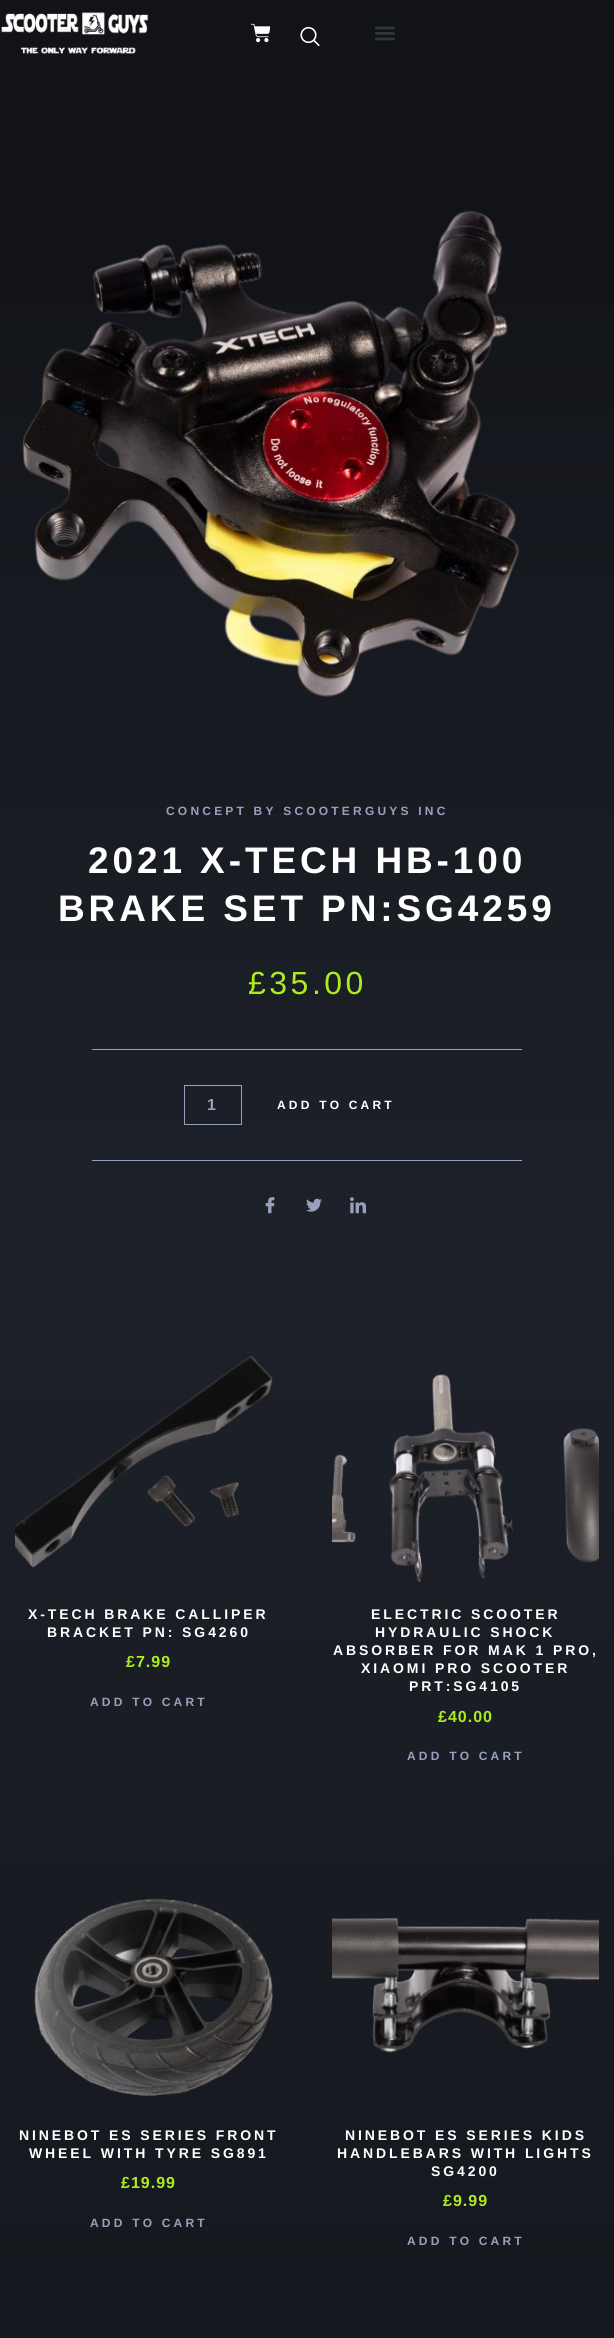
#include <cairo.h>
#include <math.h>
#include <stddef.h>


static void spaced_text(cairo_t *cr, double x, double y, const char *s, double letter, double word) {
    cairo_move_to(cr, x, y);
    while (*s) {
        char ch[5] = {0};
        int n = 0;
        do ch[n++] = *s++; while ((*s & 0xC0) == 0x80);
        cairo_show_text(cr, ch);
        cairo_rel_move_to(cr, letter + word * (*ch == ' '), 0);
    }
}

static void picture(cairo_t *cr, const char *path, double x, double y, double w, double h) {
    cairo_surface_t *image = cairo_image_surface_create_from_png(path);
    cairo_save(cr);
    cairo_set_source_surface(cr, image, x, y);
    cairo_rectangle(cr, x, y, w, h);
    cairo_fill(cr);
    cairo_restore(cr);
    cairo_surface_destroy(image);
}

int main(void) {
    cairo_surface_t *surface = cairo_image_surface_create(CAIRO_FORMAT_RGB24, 614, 2338);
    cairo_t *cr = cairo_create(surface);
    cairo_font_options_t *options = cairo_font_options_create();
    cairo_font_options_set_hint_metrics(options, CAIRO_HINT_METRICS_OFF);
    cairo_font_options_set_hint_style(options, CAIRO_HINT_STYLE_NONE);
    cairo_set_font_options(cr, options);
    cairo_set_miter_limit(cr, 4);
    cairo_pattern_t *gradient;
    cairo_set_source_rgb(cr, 0.067, 0.075, 0.094);
    cairo_paint(cr);
    picture(cr, "img1.png", 1, 12, 148, 42);
    picture(cr, "img2.png", 251, 23, 20, 20);
    picture(cr, "img3.png", 300, 26, 20, 20);
    picture(cr, "img4.png", 375, 26, 20, 15);
    gradient = cairo_pattern_create_linear(307, 145, 307, 1231);
    cairo_pattern_add_color_stop_rgba(gradient, 0, 0.067, 0.075, 0.094, 1);
    cairo_pattern_add_color_stop_rgba(gradient, 1, 0.114, 0.129, 0.161, 1);
    cairo_set_source(cr, gradient);
    cairo_pattern_destroy(gradient);
    cairo_rectangle(cr, 0, 305, 614, 926);
    cairo_fill(cr);
    picture(cr, "img5.png", 22, 210, 498, 487);
    cairo_select_font_face(cr, "Liberation Sans", CAIRO_FONT_SLANT_NORMAL, CAIRO_FONT_WEIGHT_BOLD);
    cairo_set_font_size(cr, 12);
    cairo_set_source_rgb(cr, 0.596, 0.631, 0.737);
    spaced_text(cr, 166, 815, "CONCEPT BY SCOOTERGUYS INC", 3.2, 0);
    cairo_set_font_size(cr, 37);
    cairo_set_source_rgb(cr, 1, 1, 1);
    spaced_text(cr, 88, 873, "2021 X-TECH HB-100", 3.9, 0);
    spaced_text(cr, 58, 921, "BRAKE SET PN:SG4259", 3.9, 0);
    cairo_select_font_face(cr, "Liberation Sans", CAIRO_FONT_SLANT_NORMAL, CAIRO_FONT_WEIGHT_NORMAL);
    cairo_set_font_size(cr, 32);
    cairo_set_source_rgb(cr, 0.675, 0.922, 0.118);
    spaced_text(cr, 248, 994, "£35.00", 3.5, 0);
    cairo_set_source_rgb(cr, 0.596, 0.631, 0.737);
    cairo_rectangle(cr, 92, 1049, 430, 1);
    cairo_fill(cr);
    cairo_rectangle(cr, 184.5, 1085.5, 57, 39);
    cairo_set_line_width(cr, 1);
    cairo_stroke(cr);
    cairo_select_font_face(cr, "Liberation Sans", CAIRO_FONT_SLANT_NORMAL, CAIRO_FONT_WEIGHT_BOLD);
    cairo_set_font_size(cr, 16);
    spaced_text(cr, 207, 1110, "1", 1, 0);
    cairo_set_font_size(cr, 12);
    cairo_set_source_rgb(cr, 1, 1, 1);
    spaced_text(cr, 277, 1109, "ADD TO CART", 3.2, 0);
    cairo_set_source_rgb(cr, 0.596, 0.631, 0.737);
    cairo_rectangle(cr, 92, 1160, 430, 1);
    cairo_fill(cr);
    picture(cr, "img6.png", 265, 1197, 10, 17);
    picture(cr, "img7.png", 306, 1198, 16, 14);
    picture(cr, "img8.png", 350, 1197, 16, 17);
    gradient = cairo_pattern_create_linear(307, 1231, 307, 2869);
    cairo_pattern_add_color_stop_rgba(gradient, 0, 0.114, 0.129, 0.161, 1);
    cairo_pattern_add_color_stop_rgba(gradient, 1, 0.067, 0.075, 0.094, 1);
    cairo_set_source(cr, gradient);
    cairo_pattern_destroy(gradient);
    cairo_rectangle(cr, 0, 1231, 614, 1107);
    cairo_fill(cr);
    picture(cr, "img9.png", 15, 1356, 258, 212);
    cairo_set_font_size(cr, 14);
    cairo_set_source_rgb(cr, 1, 1, 1);
    spaced_text(cr, 28, 1619, "X-TECH BRAKE CALLIPER", 2.9, 0);
    spaced_text(cr, 47, 1637, "BRACKET PN: SG4260", 2.9, 0);
    cairo_set_font_size(cr, 16);
    cairo_set_source_rgb(cr, 0.675, 0.922, 0.118);
    spaced_text(cr, 126, 1667, "£7.99", 1, 0);
    cairo_set_font_size(cr, 12);
    cairo_set_source_rgb(cr, 0.596, 0.631, 0.737);
    spaced_text(cr, 90, 1706, "ADD TO CART", 3.2, 0);
    picture(cr, "img10.png", 332, 1374, 267, 208);
    cairo_set_font_size(cr, 14);
    cairo_set_source_rgb(cr, 1, 1, 1);
    spaced_text(cr, 371, 1619, "ELECTRIC SCOOTER", 2.9, 0);
    spaced_text(cr, 375, 1637, "HYDRAULIC SHOCK", 2.9, 0);
    spaced_text(cr, 333, 1655, "ABSORBER FOR MAK 1 PRO,", 2.9, 0);
    spaced_text(cr, 361, 1673, "XIAOMI PRO SCOOTER", 2.9, 0);
    spaced_text(cr, 409, 1691, "PRT:SG4105", 2.9, 0);
    cairo_set_font_size(cr, 16);
    cairo_set_source_rgb(cr, 0.675, 0.922, 0.118);
    spaced_text(cr, 438, 1722, "£40.00", 1, 0);
    cairo_set_font_size(cr, 12);
    cairo_set_source_rgb(cr, 0.596, 0.631, 0.737);
    spaced_text(cr, 407, 1760, "ADD TO CART", 3.2, 0);
    picture(cr, "img11.png", 34, 1898, 239, 198);
    cairo_set_font_size(cr, 14);
    cairo_set_source_rgb(cr, 1, 1, 1);
    spaced_text(cr, 19, 2140, "NINEBOT ES SERIES FRONT", 2.9, 0);
    spaced_text(cr, 29, 2158, "WHEEL WITH TYRE SG891", 2.9, 0);
    cairo_set_font_size(cr, 16);
    cairo_set_source_rgb(cr, 0.675, 0.922, 0.118);
    spaced_text(cr, 121, 2188, "£19.99", 1, 0);
    cairo_set_font_size(cr, 12);
    cairo_set_source_rgb(cr, 0.596, 0.631, 0.737);
    spaced_text(cr, 90, 2227, "ADD TO CART", 3.2, 0);
    picture(cr, "img12.png", 332, 1918, 267, 135);
    cairo_set_font_size(cr, 14);
    cairo_set_source_rgb(cr, 1, 1, 1);
    spaced_text(cr, 345, 2140, "NINEBOT ES SERIES KIDS", 2.9, 0);
    spaced_text(cr, 337, 2158, "HANDLEBARS WITH LIGHTS", 2.9, 0);
    spaced_text(cr, 431, 2176, "SG4200", 2.9, 0);
    cairo_set_font_size(cr, 16);
    cairo_set_source_rgb(cr, 0.675, 0.922, 0.118);
    spaced_text(cr, 443, 2206, "£9.99", 1, 0);
    cairo_set_font_size(cr, 12);
    cairo_set_source_rgb(cr, 0.596, 0.631, 0.737);
    spaced_text(cr, 407, 2245, "ADD TO CART", 3.2, 0);
    cairo_surface_write_to_png(surface, "page.png");
    cairo_font_options_destroy(options);
    cairo_destroy(cr);
    cairo_surface_destroy(surface);
    return 0;
}
